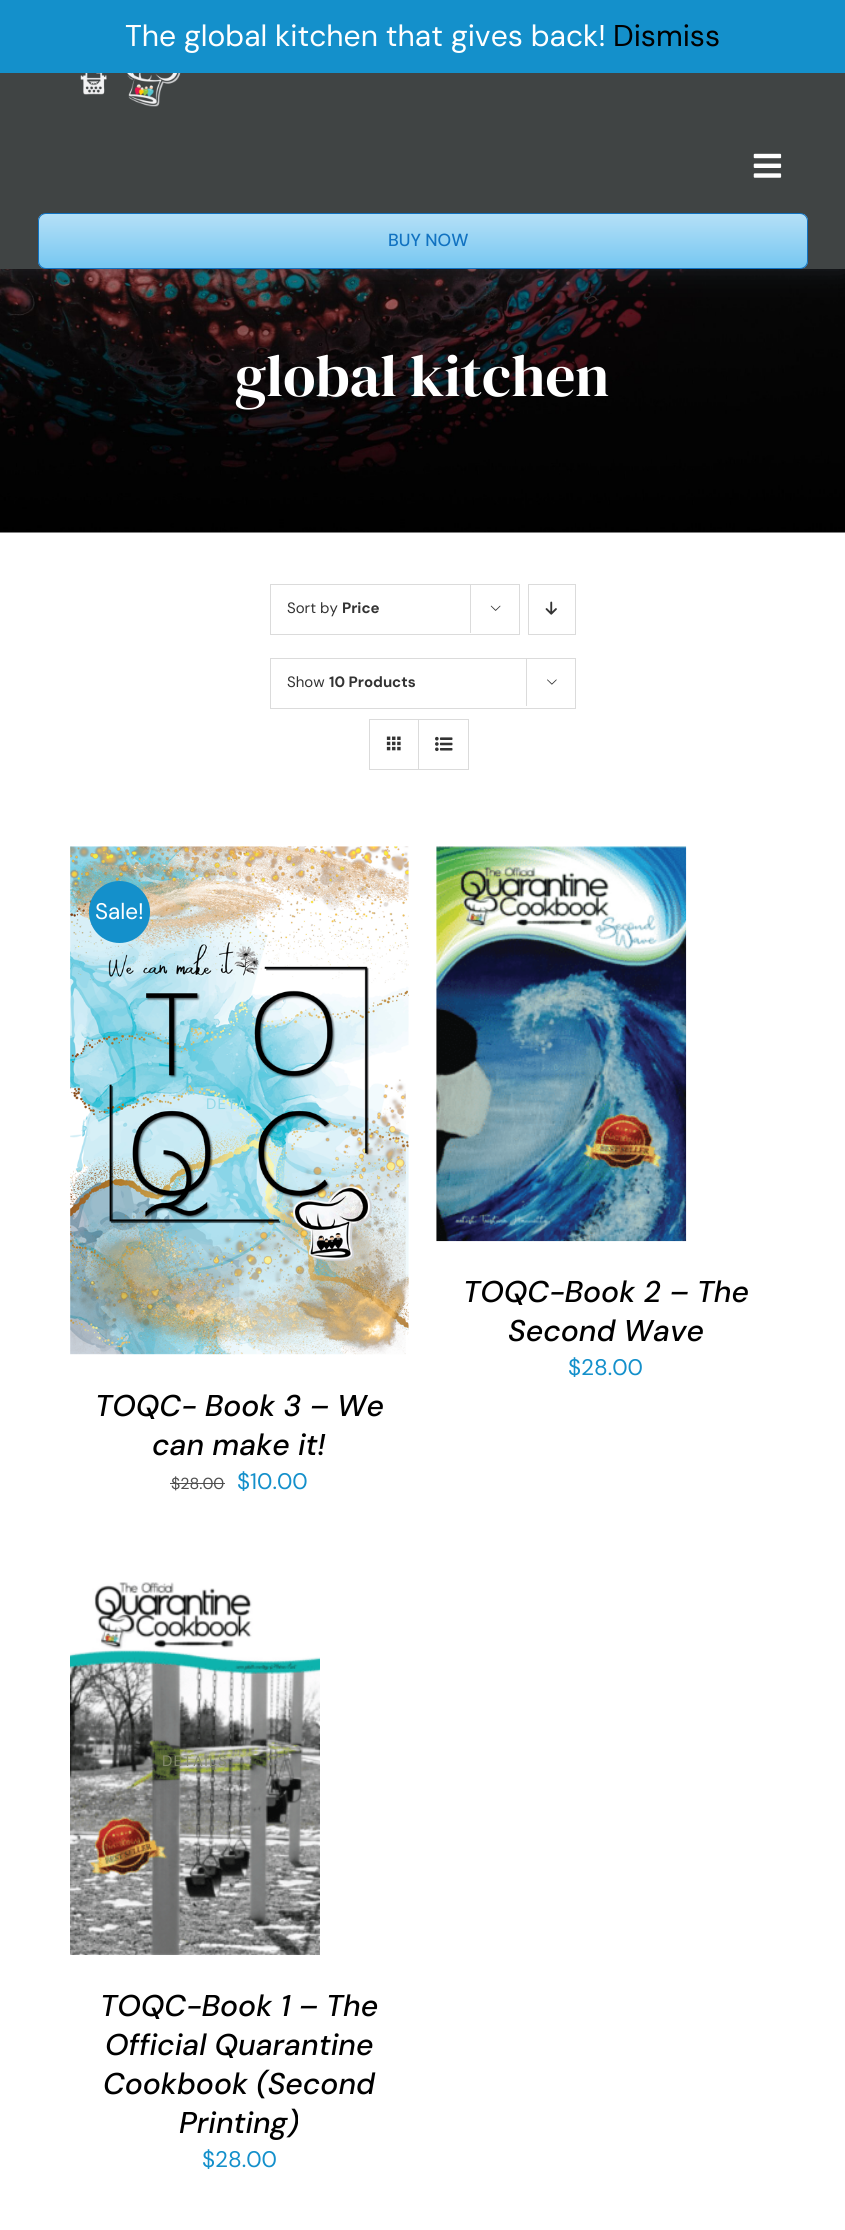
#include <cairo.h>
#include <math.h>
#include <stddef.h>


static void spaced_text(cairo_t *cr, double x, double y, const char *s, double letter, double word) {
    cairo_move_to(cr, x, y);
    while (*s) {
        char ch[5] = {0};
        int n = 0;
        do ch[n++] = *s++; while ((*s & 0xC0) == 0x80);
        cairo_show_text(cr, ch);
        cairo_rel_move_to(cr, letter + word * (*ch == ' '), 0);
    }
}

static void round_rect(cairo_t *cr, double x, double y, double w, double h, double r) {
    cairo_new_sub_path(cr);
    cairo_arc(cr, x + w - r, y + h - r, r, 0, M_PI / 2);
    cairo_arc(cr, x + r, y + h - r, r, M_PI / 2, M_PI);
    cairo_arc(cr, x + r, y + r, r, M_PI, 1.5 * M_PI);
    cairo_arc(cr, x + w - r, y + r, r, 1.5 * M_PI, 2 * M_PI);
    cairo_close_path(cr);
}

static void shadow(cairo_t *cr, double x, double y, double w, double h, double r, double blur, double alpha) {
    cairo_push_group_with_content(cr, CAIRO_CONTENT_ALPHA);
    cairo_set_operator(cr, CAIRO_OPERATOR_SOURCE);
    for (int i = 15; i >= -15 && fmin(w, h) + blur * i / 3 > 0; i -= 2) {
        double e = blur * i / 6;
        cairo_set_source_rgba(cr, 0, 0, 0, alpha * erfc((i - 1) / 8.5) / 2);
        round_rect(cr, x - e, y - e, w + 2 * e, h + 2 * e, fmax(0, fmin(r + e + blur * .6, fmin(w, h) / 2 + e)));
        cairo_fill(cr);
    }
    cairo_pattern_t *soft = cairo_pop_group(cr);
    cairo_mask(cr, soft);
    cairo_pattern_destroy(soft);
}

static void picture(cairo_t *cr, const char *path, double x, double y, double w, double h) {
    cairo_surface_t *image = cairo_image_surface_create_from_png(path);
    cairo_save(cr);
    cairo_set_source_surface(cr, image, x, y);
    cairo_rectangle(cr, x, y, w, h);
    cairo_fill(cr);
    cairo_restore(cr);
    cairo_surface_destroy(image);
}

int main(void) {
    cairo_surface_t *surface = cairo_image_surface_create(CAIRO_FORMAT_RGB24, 845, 2230);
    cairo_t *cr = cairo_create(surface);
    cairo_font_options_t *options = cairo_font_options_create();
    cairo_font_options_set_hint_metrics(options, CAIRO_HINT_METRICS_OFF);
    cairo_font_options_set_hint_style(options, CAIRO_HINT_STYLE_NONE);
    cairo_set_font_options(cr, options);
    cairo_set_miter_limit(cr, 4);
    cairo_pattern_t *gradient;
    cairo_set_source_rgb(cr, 1, 1, 1);
    cairo_paint(cr);
    picture(cr, "img3.png", 0, 269, 845, 264);
    cairo_set_source_rgb(cr, 0.196, 0.227, 0.271);
    shadow(cr, 0, 0, 845, 269, 0, 13, 0.52);
    cairo_set_source_rgb(cr, 0.082, 0.565, 0.796);
    cairo_rectangle(cr, 0, 0, 845, 73);
    cairo_fill(cr);
    cairo_select_font_face(cr, "DM Sans", CAIRO_FONT_SLANT_NORMAL, CAIRO_FONT_WEIGHT_NORMAL);
    cairo_set_font_size(cr, 30);
    cairo_set_source_rgb(cr, 1, 1, 1);
    cairo_move_to(cr, 125, 46);
    cairo_show_text(cr, "The global kitchen that gives back!");
    cairo_set_source_rgb(cr, 0, 0, 0);
    cairo_move_to(cr, 613, 46);
    cairo_show_text(cr, "Dismiss");
    cairo_set_source_rgb(cr, 0.251, 0.267, 0.267);
    cairo_rectangle(cr, 0, 73, 845, 196);
    cairo_fill(cr);
    picture(cr, "img1.png", 80, 73, 101, 34);
    picture(cr, "img2.png", 753, 153, 29, 25);
    cairo_save(cr);
    round_rect(cr, 38, 213, 770, 56, 8);
    cairo_clip(cr);
    gradient = cairo_pattern_create_linear(423, 268, 423, 214);
    cairo_pattern_add_color_stop_rgba(gradient, 0, 0.463, 0.78, 0.945, 1);
    cairo_pattern_add_color_stop_rgba(gradient, 1, 0.71, 0.878, 0.969, 1);
    cairo_set_source(cr, gradient);
    cairo_pattern_destroy(gradient);
    cairo_rectangle(cr, 38, 214, 770, 54);
    cairo_fill(cr);
    cairo_restore(cr);
    round_rect(cr, 38.5, 213.5, 769, 55, 7.5);
    cairo_set_source_rgb(cr, 0.067, 0.447, 0.757);
    cairo_set_line_width(cr, 1);
    cairo_stroke(cr);
    cairo_select_font_face(cr, "DM Sans Medium", CAIRO_FONT_SLANT_NORMAL, CAIRO_FONT_WEIGHT_NORMAL);
    cairo_set_font_size(cr, 17.5);
    cairo_move_to(cr, 388, 246);
    cairo_show_text(cr, "BUY NOW");
    cairo_select_font_face(cr, "DM Serif Display", CAIRO_FONT_SLANT_NORMAL, CAIRO_FONT_WEIGHT_NORMAL);
    cairo_set_font_size(cr, 59);
    cairo_set_source_rgb(cr, 1, 1, 1);
    cairo_move_to(cr, 235, 396);
    cairo_show_text(cr, "global kitchen");
    cairo_rectangle(cr, 270.5, 584.5, 249, 50);
    cairo_set_source_rgb(cr, 0.859, 0.859, 0.859);
    cairo_stroke(cr);
    cairo_select_font_face(cr, "DM Sans", CAIRO_FONT_SLANT_NORMAL, CAIRO_FONT_WEIGHT_NORMAL);
    cairo_set_font_size(cr, 15);
    cairo_set_source_rgb(cr, 0.2, 0.2, 0.2);
    cairo_move_to(cr, 287, 613);
    cairo_show_text(cr, "Sort by");
    cairo_select_font_face(cr, "DM Sans", CAIRO_FONT_SLANT_NORMAL, CAIRO_FONT_WEIGHT_BOLD);
    cairo_move_to(cr, 342, 613);
    cairo_show_text(cr, "Price");
    cairo_set_source_rgb(cr, 0.859, 0.859, 0.859);
    cairo_rectangle(cr, 470, 584, 1, 49);
    cairo_fill(cr);
    picture(cr, "img4.png", 490, 605, 11, 6);
    cairo_rectangle(cr, 528.5, 584.5, 47, 50);
    cairo_stroke(cr);
    picture(cr, "img5.png", 545, 601, 12, 14);
    cairo_rectangle(cr, 270.5, 658.5, 305, 50);
    cairo_stroke(cr);
    cairo_select_font_face(cr, "DM Sans", CAIRO_FONT_SLANT_NORMAL, CAIRO_FONT_WEIGHT_NORMAL);
    cairo_set_source_rgb(cr, 0.2, 0.2, 0.2);
    cairo_move_to(cr, 287, 687);
    cairo_show_text(cr, "Show");
    cairo_select_font_face(cr, "DM Sans", CAIRO_FONT_SLANT_NORMAL, CAIRO_FONT_WEIGHT_BOLD);
    cairo_move_to(cr, 329, 687);
    cairo_show_text(cr, "10 Products");
    cairo_set_source_rgb(cr, 0.859, 0.859, 0.859);
    cairo_rectangle(cr, 526, 658, 1, 48);
    cairo_fill(cr);
    picture(cr, "img6.png", 547, 679, 10, 6);
    cairo_rectangle(cr, 369.5, 719.5, 99, 50);
    cairo_stroke(cr);
    cairo_rectangle(cr, 418, 720, 1, 49);
    cairo_fill(cr);
    picture(cr, "img7.png", 386, 736, 15, 15);
    picture(cr, "img8.png", 435, 736, 18, 16);
    picture(cr, "img9.png", 70, 846, 339, 509);
    cairo_set_source_rgb(cr, 0.082, 0.565, 0.796);
    round_rect(cr, 89, 881, 61, 62, 30.5);
    cairo_fill(cr);
    cairo_select_font_face(cr, "DM Sans", CAIRO_FONT_SLANT_NORMAL, CAIRO_FONT_WEIGHT_NORMAL);
    cairo_set_font_size(cr, 22.5);
    cairo_set_source_rgb(cr, 1, 1, 1);
    cairo_move_to(cr, 95, 919);
    cairo_show_text(cr, "Sale!");
    cairo_set_font_size(cr, 15);
    cairo_set_source_rgb(cr, 0.561, 0.847, 0.906);
    spaced_text(cr, 206, 1109, "DETA", 1.25, 0);
    cairo_select_font_face(cr, "DM Sans Medium", CAIRO_FONT_SLANT_ITALIC, CAIRO_FONT_WEIGHT_NORMAL);
    cairo_set_font_size(cr, 30);
    cairo_set_source_rgb(cr, 0, 0, 0);
    cairo_move_to(cr, 95, 1416);
    cairo_show_text(cr, "TOQC- Book 3 – We");
    cairo_move_to(cr, 152, 1455);
    cairo_show_text(cr, "can make it!");
    cairo_select_font_face(cr, "DM Sans", CAIRO_FONT_SLANT_NORMAL, CAIRO_FONT_WEIGHT_NORMAL);
    cairo_set_font_size(cr, 16);
    cairo_set_source_rgb(cr, 0.31, 0.31, 0.31);
    cairo_move_to(cr, 171, 1489);
    cairo_show_text(cr, "$28.00");
    cairo_rectangle(cr, 170, 1483, 55, 1);
    cairo_fill(cr);
    cairo_set_font_size(cr, 22.5);
    cairo_set_source_rgb(cr, 0.082, 0.565, 0.796);
    cairo_move_to(cr, 237, 1489);
    cairo_show_text(cr, "$10.00");
    picture(cr, "img10.png", 436, 846, 251, 396);
    cairo_select_font_face(cr, "DM Sans Medium", CAIRO_FONT_SLANT_ITALIC, CAIRO_FONT_WEIGHT_NORMAL);
    cairo_set_font_size(cr, 30);
    cairo_set_source_rgb(cr, 0, 0, 0);
    cairo_move_to(cr, 463, 1302);
    cairo_show_text(cr, "TOQC-Book 2 – The");
    cairo_move_to(cr, 508, 1341);
    cairo_show_text(cr, "Second Wave");
    cairo_select_font_face(cr, "DM Sans", CAIRO_FONT_SLANT_NORMAL, CAIRO_FONT_WEIGHT_NORMAL);
    cairo_set_font_size(cr, 22.5);
    cairo_set_source_rgb(cr, 0.082, 0.565, 0.796);
    cairo_move_to(cr, 568, 1375);
    cairo_show_text(cr, "$28.00");
    picture(cr, "img11.png", 70, 1582, 250, 373);
    cairo_set_font_size(cr, 15);
    cairo_set_source_rgb(cr, 0.518, 0.541, 0.427);
    spaced_text(cr, 162, 1766, "DETAILS", 1.25, 0);
    cairo_select_font_face(cr, "DM Sans Medium", CAIRO_FONT_SLANT_ITALIC, CAIRO_FONT_WEIGHT_NORMAL);
    cairo_set_font_size(cr, 30);
    cairo_set_source_rgb(cr, 0, 0, 0);
    cairo_move_to(cr, 100, 2016);
    cairo_show_text(cr, "TOQC-Book 1 – The");
    cairo_move_to(cr, 105, 2055);
    cairo_show_text(cr, "Official Quarantine");
    cairo_move_to(cr, 103, 2094);
    cairo_show_text(cr, "Cookbook (Second");
    cairo_move_to(cr, 179, 2133);
    cairo_show_text(cr, "Printing)");
    cairo_select_font_face(cr, "DM Sans", CAIRO_FONT_SLANT_NORMAL, CAIRO_FONT_WEIGHT_NORMAL);
    cairo_set_font_size(cr, 22.5);
    cairo_set_source_rgb(cr, 0.082, 0.565, 0.796);
    cairo_move_to(cr, 202, 2167);
    cairo_show_text(cr, "$28.00");
    cairo_surface_write_to_png(surface, "page.png");
    cairo_font_options_destroy(options);
    cairo_destroy(cr);
    cairo_surface_destroy(surface);
    return 0;
}
